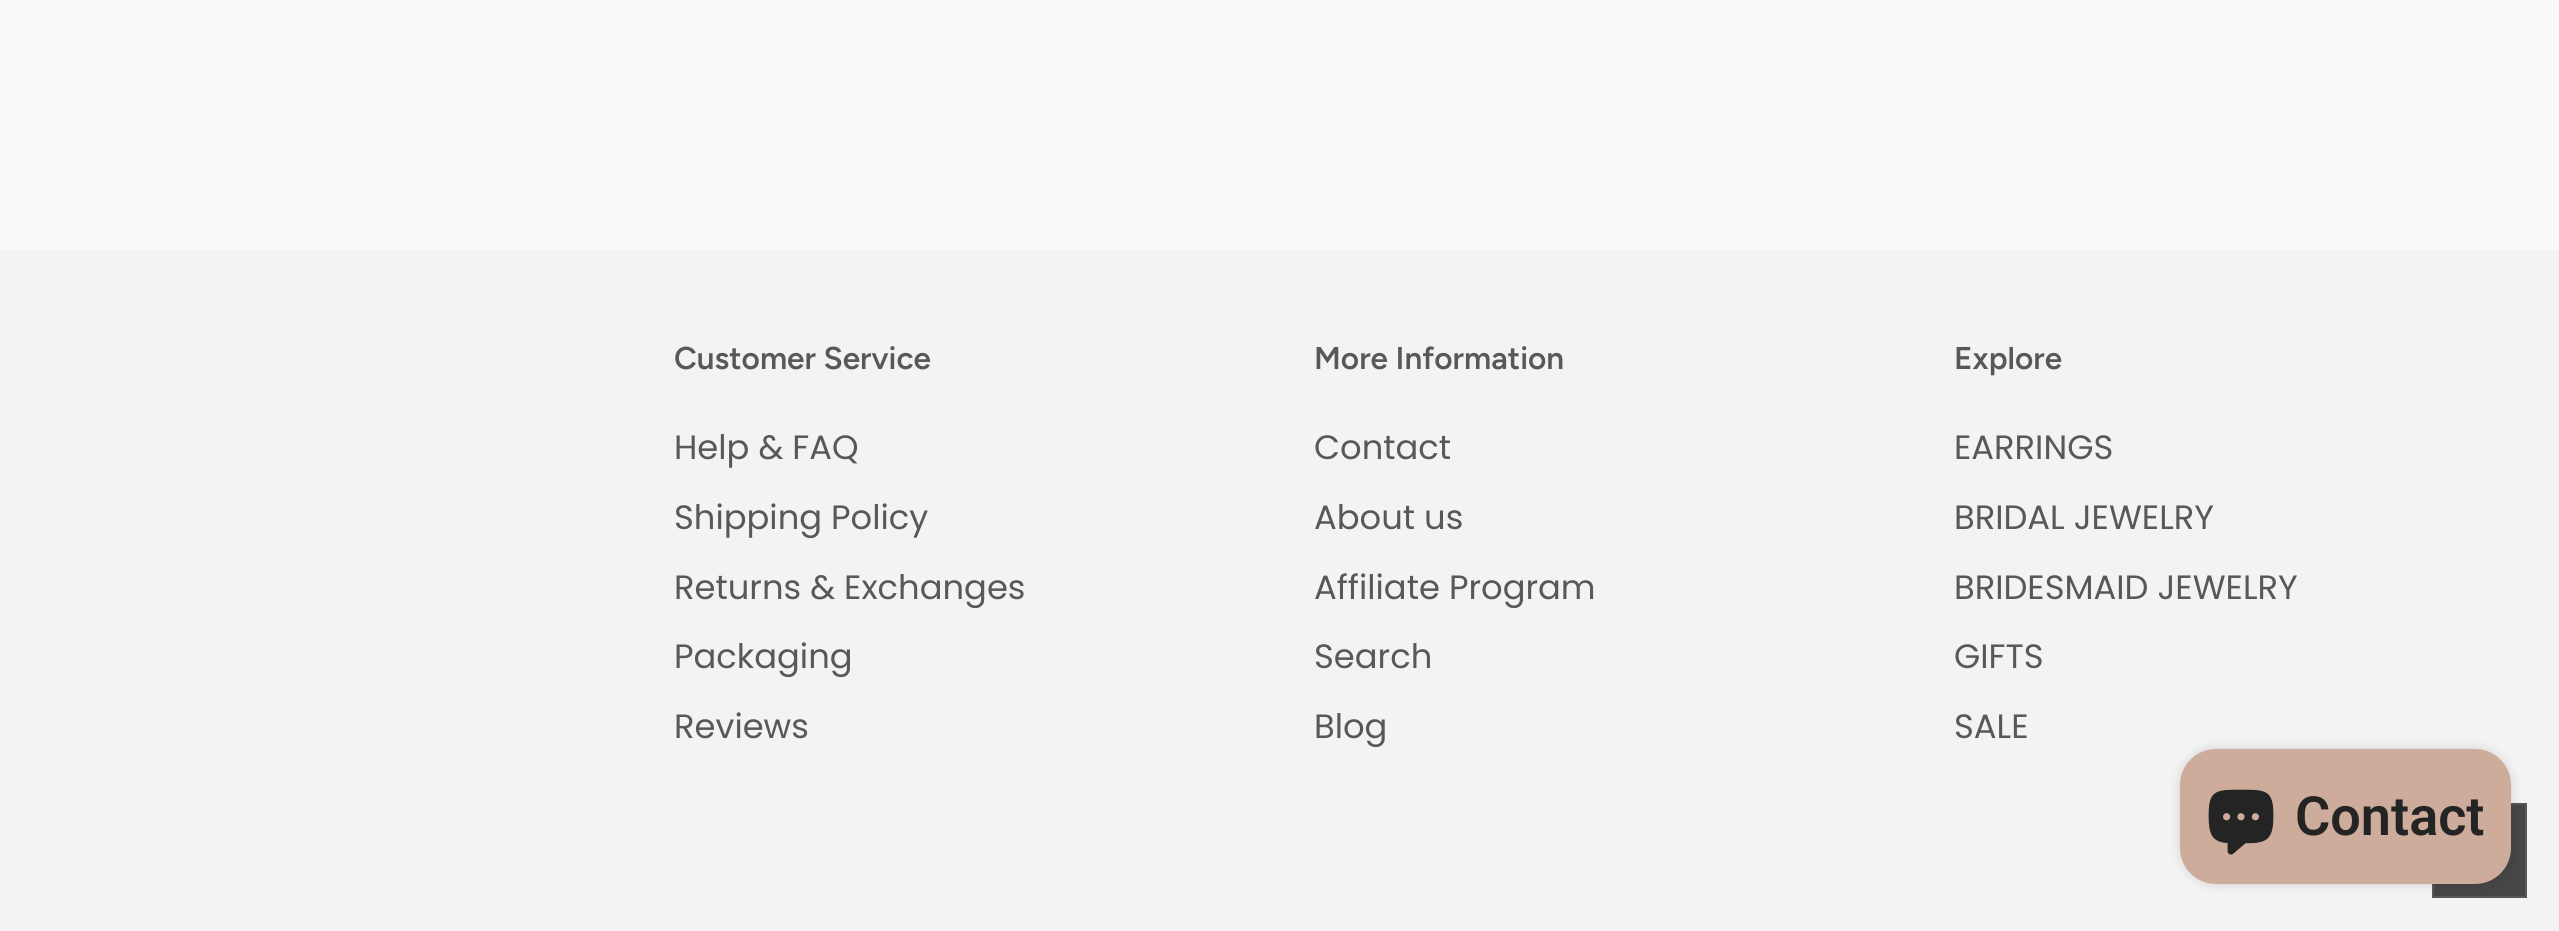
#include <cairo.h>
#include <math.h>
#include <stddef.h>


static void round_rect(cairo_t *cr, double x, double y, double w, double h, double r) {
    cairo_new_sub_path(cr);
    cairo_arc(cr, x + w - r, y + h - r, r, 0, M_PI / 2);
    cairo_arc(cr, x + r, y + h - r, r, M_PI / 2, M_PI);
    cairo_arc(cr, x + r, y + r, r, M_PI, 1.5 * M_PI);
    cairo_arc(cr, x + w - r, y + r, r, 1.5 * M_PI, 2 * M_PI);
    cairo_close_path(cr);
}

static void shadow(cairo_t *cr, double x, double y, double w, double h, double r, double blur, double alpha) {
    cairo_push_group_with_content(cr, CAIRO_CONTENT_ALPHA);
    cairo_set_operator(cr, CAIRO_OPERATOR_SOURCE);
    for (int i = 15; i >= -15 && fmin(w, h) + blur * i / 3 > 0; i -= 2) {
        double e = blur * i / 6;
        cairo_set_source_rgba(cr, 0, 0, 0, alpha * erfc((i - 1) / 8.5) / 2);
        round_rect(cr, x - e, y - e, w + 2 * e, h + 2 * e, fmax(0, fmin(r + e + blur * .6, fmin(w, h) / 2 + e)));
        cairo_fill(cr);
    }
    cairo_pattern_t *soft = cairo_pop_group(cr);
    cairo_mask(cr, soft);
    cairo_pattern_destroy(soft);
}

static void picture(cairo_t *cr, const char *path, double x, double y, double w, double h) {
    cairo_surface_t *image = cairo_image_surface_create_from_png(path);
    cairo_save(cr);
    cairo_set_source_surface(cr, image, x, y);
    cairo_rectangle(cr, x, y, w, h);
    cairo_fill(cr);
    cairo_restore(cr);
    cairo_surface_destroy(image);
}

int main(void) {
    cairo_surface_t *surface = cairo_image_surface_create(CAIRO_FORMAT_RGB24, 2559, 931);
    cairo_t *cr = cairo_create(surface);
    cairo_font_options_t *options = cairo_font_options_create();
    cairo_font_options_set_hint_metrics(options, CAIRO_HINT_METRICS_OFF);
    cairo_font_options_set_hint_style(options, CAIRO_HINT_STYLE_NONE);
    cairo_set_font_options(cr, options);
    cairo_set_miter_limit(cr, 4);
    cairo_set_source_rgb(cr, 0.976, 0.976, 0.976);
    cairo_paint(cr);
    cairo_set_source_rgb(cr, 0.953, 0.953, 0.953);
    cairo_rectangle(cr, 0, 250, 2559, 681);
    cairo_fill(cr);
    cairo_select_font_face(cr, "Figtree SemiBold", CAIRO_FONT_SLANT_NORMAL, CAIRO_FONT_WEIGHT_NORMAL);
    cairo_set_font_size(cr, 31.5);
    cairo_set_source_rgb(cr, 0.345, 0.345, 0.345);
    cairo_move_to(cr, 674, 369);
    cairo_show_text(cr, "Customer Service");
    cairo_select_font_face(cr, "Poppins", CAIRO_FONT_SLANT_NORMAL, CAIRO_FONT_WEIGHT_NORMAL);
    cairo_set_font_size(cr, 33.75);
    cairo_move_to(cr, 674, 459);
    cairo_show_text(cr, "Help & FAQ");
    cairo_move_to(cr, 674, 529);
    cairo_show_text(cr, "Shipping Policy");
    cairo_move_to(cr, 674, 599);
    cairo_show_text(cr, "Returns & Exchanges");
    cairo_move_to(cr, 674, 668);
    cairo_show_text(cr, "Packaging");
    cairo_move_to(cr, 674, 738);
    cairo_show_text(cr, "Reviews");
    cairo_select_font_face(cr, "Figtree SemiBold", CAIRO_FONT_SLANT_NORMAL, CAIRO_FONT_WEIGHT_NORMAL);
    cairo_set_font_size(cr, 31.5);
    cairo_move_to(cr, 1314, 369);
    cairo_show_text(cr, "More Information");
    cairo_select_font_face(cr, "Poppins", CAIRO_FONT_SLANT_NORMAL, CAIRO_FONT_WEIGHT_NORMAL);
    cairo_set_font_size(cr, 33.75);
    cairo_move_to(cr, 1314, 459);
    cairo_show_text(cr, "Contact");
    cairo_move_to(cr, 1314, 529);
    cairo_show_text(cr, "About us");
    cairo_move_to(cr, 1314, 599);
    cairo_show_text(cr, "Affiliate Program");
    cairo_move_to(cr, 1314, 668);
    cairo_show_text(cr, "Search");
    cairo_move_to(cr, 1314, 738);
    cairo_show_text(cr, "Blog");
    cairo_select_font_face(cr, "Figtree SemiBold", CAIRO_FONT_SLANT_NORMAL, CAIRO_FONT_WEIGHT_NORMAL);
    cairo_set_font_size(cr, 31.5);
    cairo_move_to(cr, 1954, 369);
    cairo_show_text(cr, "Explore");
    cairo_select_font_face(cr, "Poppins", CAIRO_FONT_SLANT_NORMAL, CAIRO_FONT_WEIGHT_NORMAL);
    cairo_set_font_size(cr, 33.75);
    cairo_move_to(cr, 1954, 459);
    cairo_show_text(cr, "EARRINGS");
    cairo_move_to(cr, 1954, 529);
    cairo_show_text(cr, "BRIDAL JEWELRY");
    cairo_move_to(cr, 1954, 599);
    cairo_show_text(cr, "BRIDESMAID JEWELRY");
    cairo_move_to(cr, 1954, 668);
    cairo_show_text(cr, "GIFTS");
    cairo_move_to(cr, 1954, 738);
    cairo_show_text(cr, "SALE");
    cairo_set_source_rgb(cr, 0.275, 0.275, 0.275);
    cairo_rectangle(cr, 2433, 804, 93, 93);
    cairo_fill_preserve(cr);
    cairo_set_source_rgb(cr, 0.345, 0.345, 0.345);
    cairo_stroke(cr);
    cairo_set_source_rgb(cr, 0, 0, 0);
    shadow(cr, 2180, 749, 331, 135, 36, 5.5, 0.15);
    cairo_set_source_rgb(cr, 0.804, 0.675, 0.608);
    round_rect(cr, 2180, 749, 331, 135, 36);
    cairo_fill(cr);
    picture(cr, "img1.png", 2208, 789, 66, 66);
    cairo_select_font_face(cr, "Roboto SemiBold", CAIRO_FONT_SLANT_NORMAL, CAIRO_FONT_WEIGHT_NORMAL);
    cairo_set_font_size(cr, 54);
    cairo_set_source_rgb(cr, 0.141, 0.141, 0.141);
    cairo_move_to(cr, 2295, 835);
    cairo_show_text(cr, "Contact");
    cairo_surface_write_to_png(surface, "page.png");
    cairo_font_options_destroy(options);
    cairo_destroy(cr);
    cairo_surface_destroy(surface);
    return 0;
}
